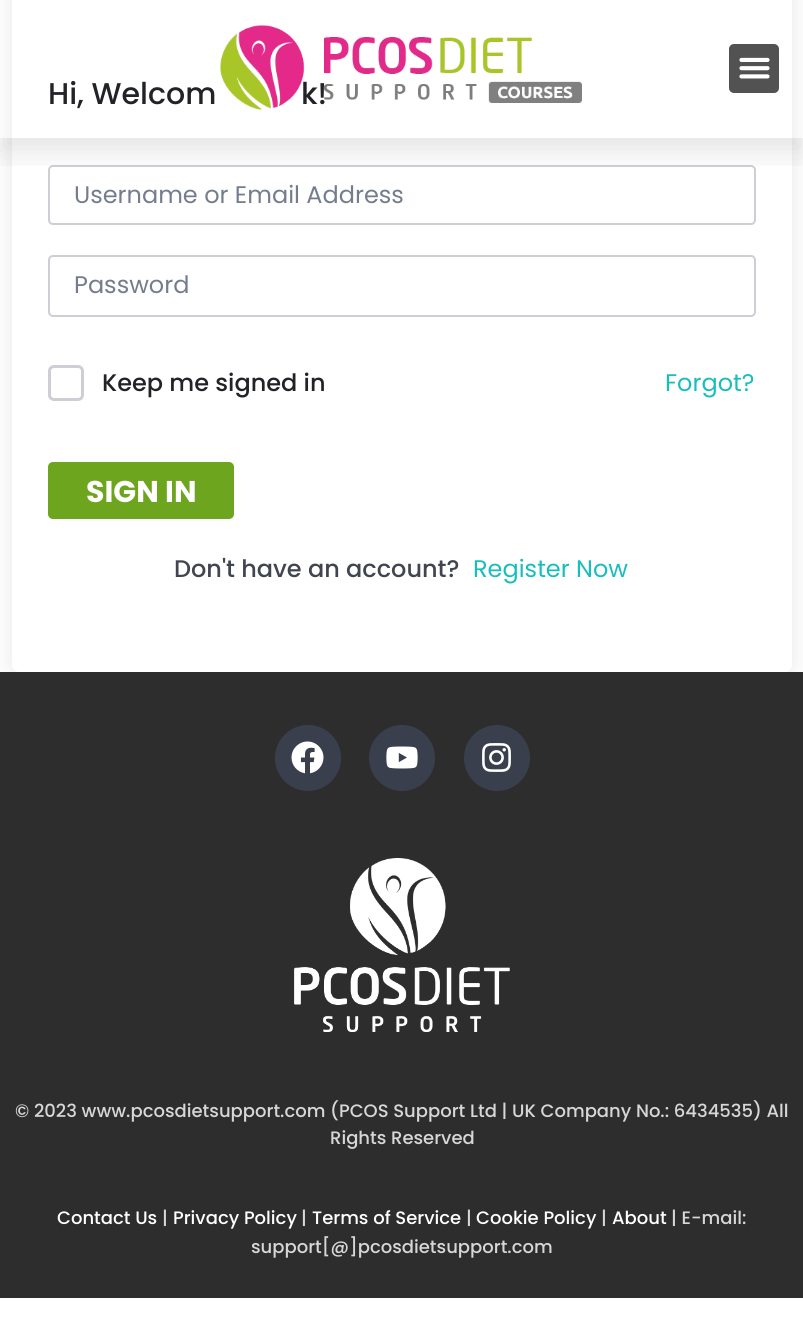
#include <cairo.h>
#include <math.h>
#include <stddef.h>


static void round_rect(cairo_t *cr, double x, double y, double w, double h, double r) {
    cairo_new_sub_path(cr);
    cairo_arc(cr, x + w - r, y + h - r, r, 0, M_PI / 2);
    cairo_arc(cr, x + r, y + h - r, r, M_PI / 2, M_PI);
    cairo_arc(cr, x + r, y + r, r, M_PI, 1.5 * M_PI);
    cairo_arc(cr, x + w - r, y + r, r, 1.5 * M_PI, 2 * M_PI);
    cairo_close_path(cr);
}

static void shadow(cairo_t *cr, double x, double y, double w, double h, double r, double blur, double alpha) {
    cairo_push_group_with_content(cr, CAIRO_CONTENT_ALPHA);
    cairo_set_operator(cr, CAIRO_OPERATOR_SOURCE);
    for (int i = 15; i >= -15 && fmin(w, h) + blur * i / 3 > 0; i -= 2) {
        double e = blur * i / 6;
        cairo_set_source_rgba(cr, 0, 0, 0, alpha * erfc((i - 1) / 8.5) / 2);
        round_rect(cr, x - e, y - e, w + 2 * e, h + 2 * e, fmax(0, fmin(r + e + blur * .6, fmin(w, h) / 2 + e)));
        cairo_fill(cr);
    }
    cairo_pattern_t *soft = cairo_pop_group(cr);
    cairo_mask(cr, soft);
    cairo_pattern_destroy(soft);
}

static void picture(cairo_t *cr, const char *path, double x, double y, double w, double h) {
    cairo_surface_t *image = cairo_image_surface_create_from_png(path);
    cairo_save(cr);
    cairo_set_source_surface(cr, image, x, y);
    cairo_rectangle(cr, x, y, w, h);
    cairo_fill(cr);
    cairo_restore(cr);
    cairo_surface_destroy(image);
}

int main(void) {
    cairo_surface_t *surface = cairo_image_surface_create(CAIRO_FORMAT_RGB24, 803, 1322);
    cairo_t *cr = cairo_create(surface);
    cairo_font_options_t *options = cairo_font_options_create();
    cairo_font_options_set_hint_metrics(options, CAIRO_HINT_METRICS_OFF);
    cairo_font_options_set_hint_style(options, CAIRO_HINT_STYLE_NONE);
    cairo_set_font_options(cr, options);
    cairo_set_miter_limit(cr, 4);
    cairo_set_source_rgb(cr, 1, 1, 1);
    cairo_paint(cr);
    cairo_save(cr);
    cairo_set_fill_rule(cr, CAIRO_FILL_RULE_EVEN_ODD);
    cairo_new_path(cr);
    cairo_move_to(cr, 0, 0);
    cairo_line_to(cr, 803, 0);
    cairo_line_to(cr, 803, 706);
    cairo_line_to(cr, 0, 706);
    cairo_close_path(cr);
    cairo_move_to(cr, 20, -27);
    cairo_line_to(cr, 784, -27);
    cairo_curve_to(cr, 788.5, -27, 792, -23.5, 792, -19);
    cairo_line_to(cr, 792, 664);
    cairo_curve_to(cr, 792, 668.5, 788.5, 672, 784, 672);
    cairo_line_to(cr, 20, 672);
    cairo_curve_to(cr, 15.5, 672, 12, 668.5, 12, 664);
    cairo_line_to(cr, 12, -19);
    cairo_curve_to(cr, 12, -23.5, 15.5, -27, 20, -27);
    cairo_close_path(cr);
    cairo_clip(cr);
    cairo_set_source_rgb(cr, 0, 0, 0);
    shadow(cr, 12, -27, 780, 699, 8, 11, 0.1);
    cairo_restore(cr);
    round_rect(cr, 49, 166, 706, 58, 4);
    cairo_set_source_rgb(cr, 0.804, 0.812, 0.835);
    cairo_stroke(cr);
    cairo_save(cr);
    cairo_rectangle(cr, 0, 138, 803, 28);
    cairo_clip(cr);
    cairo_set_source_rgb(cr, 0, 0, 0);
    shadow(cr, 0, 15, 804, 138, 0, 15, 0.1);
    cairo_restore(cr);
    cairo_select_font_face(cr, "Poppins Medium", CAIRO_FONT_SLANT_NORMAL, CAIRO_FONT_WEIGHT_NORMAL);
    cairo_set_font_size(cr, 30);
    cairo_set_source_rgb(cr, 0.129, 0.137, 0.153);
    cairo_move_to(cr, 301, 104);
    cairo_show_text(cr, "k!");
    picture(cr, "img1.png", 220, 25, 362, 85);
    cairo_set_source_rgb(cr, 0.322, 0.322, 0.322);
    round_rect(cr, 729, 44, 50, 49, 5);
    cairo_fill(cr);
    picture(cr, "img2.png", 739, 57, 31, 22);
    cairo_set_source_rgb(cr, 0.129, 0.137, 0.153);
    cairo_move_to(cr, 48, 104);
    cairo_show_text(cr, "Hi, Welcom");
    cairo_select_font_face(cr, "Poppins", CAIRO_FONT_SLANT_NORMAL, CAIRO_FONT_WEIGHT_NORMAL);
    cairo_set_font_size(cr, 24);
    cairo_set_source_rgb(cr, 0.459, 0.486, 0.557);
    cairo_move_to(cr, 74, 203);
    cairo_show_text(cr, "Username or Email Address");
    round_rect(cr, 49, 256, 706, 60, 4);
    cairo_set_source_rgb(cr, 0.804, 0.812, 0.835);
    cairo_stroke(cr);
    cairo_set_source_rgb(cr, 0.459, 0.486, 0.557);
    cairo_move_to(cr, 74, 293);
    cairo_show_text(cr, "Password");
    round_rect(cr, 49.5, 366.5, 33, 33, 4.5);
    cairo_set_source_rgb(cr, 0.804, 0.812, 0.835);
    cairo_set_line_width(cr, 3);
    cairo_stroke(cr);
    cairo_select_font_face(cr, "Poppins Medium", CAIRO_FONT_SLANT_NORMAL, CAIRO_FONT_WEIGHT_NORMAL);
    cairo_set_source_rgb(cr, 0.129, 0.137, 0.153);
    cairo_move_to(cr, 102, 391);
    cairo_show_text(cr, "Keep me signed in");
    cairo_select_font_face(cr, "Poppins", CAIRO_FONT_SLANT_NORMAL, CAIRO_FONT_WEIGHT_NORMAL);
    cairo_set_source_rgb(cr, 0.09, 0.745, 0.733);
    cairo_move_to(cr, 665, 391);
    cairo_show_text(cr, "Forgot?");
    cairo_set_source_rgb(cr, 0.431, 0.647, 0.122);
    round_rect(cr, 48, 462, 186, 57, 5);
    cairo_fill(cr);
    cairo_select_font_face(cr, "Poppins", CAIRO_FONT_SLANT_NORMAL, CAIRO_FONT_WEIGHT_BOLD);
    cairo_set_font_size(cr, 30);
    cairo_set_source_rgb(cr, 1, 1, 1);
    cairo_move_to(cr, 86, 502);
    cairo_show_text(cr, "SIGN IN");
    cairo_select_font_face(cr, "Poppins Medium", CAIRO_FONT_SLANT_NORMAL, CAIRO_FONT_WEIGHT_NORMAL);
    cairo_set_font_size(cr, 24);
    cairo_set_source_rgb(cr, 0.255, 0.271, 0.31);
    cairo_move_to(cr, 174, 577);
    cairo_show_text(cr, "Don't have an account?");
    cairo_select_font_face(cr, "Poppins", CAIRO_FONT_SLANT_NORMAL, CAIRO_FONT_WEIGHT_NORMAL);
    cairo_set_source_rgb(cr, 0.09, 0.745, 0.733);
    cairo_move_to(cr, 473, 577);
    cairo_show_text(cr, "Register Now");
    cairo_set_source_rgb(cr, 0.176, 0.176, 0.176);
    cairo_rectangle(cr, 0, 672, 803, 626);
    cairo_fill(cr);
    cairo_set_source_rgb(cr, 0.227, 0.247, 0.302);
    cairo_arc(cr, 308, 758, 33, 0, 2 * M_PI);
    cairo_fill(cr);
    picture(cr, "img3.png", 291, 741, 33, 33);
    cairo_arc(cr, 402, 758, 33, 0, 2 * M_PI);
    cairo_fill(cr);
    picture(cr, "img4.png", 386, 746, 32, 23);
    cairo_arc(cr, 497, 758, 33, 0, 2 * M_PI);
    cairo_fill(cr);
    picture(cr, "img5.png", 482, 743, 29, 29);
    picture(cr, "img6.png", 294, 858, 216, 174);
    cairo_select_font_face(cr, "Poppins Medium", CAIRO_FONT_SLANT_NORMAL, CAIRO_FONT_WEIGHT_NORMAL);
    cairo_set_font_size(cr, 18);
    cairo_set_source_rgb(cr, 0.843, 0.843, 0.843);
    cairo_move_to(cr, 15, 1117);
    cairo_show_text(cr, "© 2023 www.pcosdietsupport.com (PCOS Support Ltd | UK Company No.: 6434535) All");
    cairo_move_to(cr, 330, 1144);
    cairo_show_text(cr, "Rights Reserved");
    cairo_set_source_rgb(cr, 1, 1, 1);
    cairo_move_to(cr, 57, 1224);
    cairo_show_text(cr, "Contact Us");
    cairo_set_source_rgb(cr, 0.843, 0.843, 0.843);
    cairo_move_to(cr, 162, 1224);
    cairo_show_text(cr, "|");
    cairo_set_source_rgb(cr, 1, 1, 1);
    cairo_move_to(cr, 173, 1224);
    cairo_show_text(cr, "Privacy Policy");
    cairo_set_source_rgb(cr, 0.843, 0.843, 0.843);
    cairo_move_to(cr, 301, 1224);
    cairo_show_text(cr, "|");
    cairo_set_source_rgb(cr, 1, 1, 1);
    cairo_move_to(cr, 312, 1224);
    cairo_show_text(cr, "Terms of Service");
    cairo_set_source_rgb(cr, 0.843, 0.843, 0.843);
    cairo_move_to(cr, 466, 1224);
    cairo_show_text(cr, "|");
    cairo_set_source_rgb(cr, 1, 1, 1);
    cairo_move_to(cr, 476, 1224);
    cairo_show_text(cr, "Cookie Policy");
    cairo_set_source_rgb(cr, 0.843, 0.843, 0.843);
    cairo_move_to(cr, 601, 1224);
    cairo_show_text(cr, "|");
    cairo_set_source_rgb(cr, 1, 1, 1);
    cairo_move_to(cr, 612, 1224);
    cairo_show_text(cr, "About");
    cairo_set_source_rgb(cr, 0.843, 0.843, 0.843);
    cairo_move_to(cr, 671, 1224);
    cairo_show_text(cr, "| E-mail:");
    cairo_move_to(cr, 251, 1253);
    cairo_show_text(cr, "support[@]pcosdietsupport.com");
    cairo_surface_write_to_png(surface, "page.png");
    cairo_font_options_destroy(options);
    cairo_destroy(cr);
    cairo_surface_destroy(surface);
    return 0;
}
